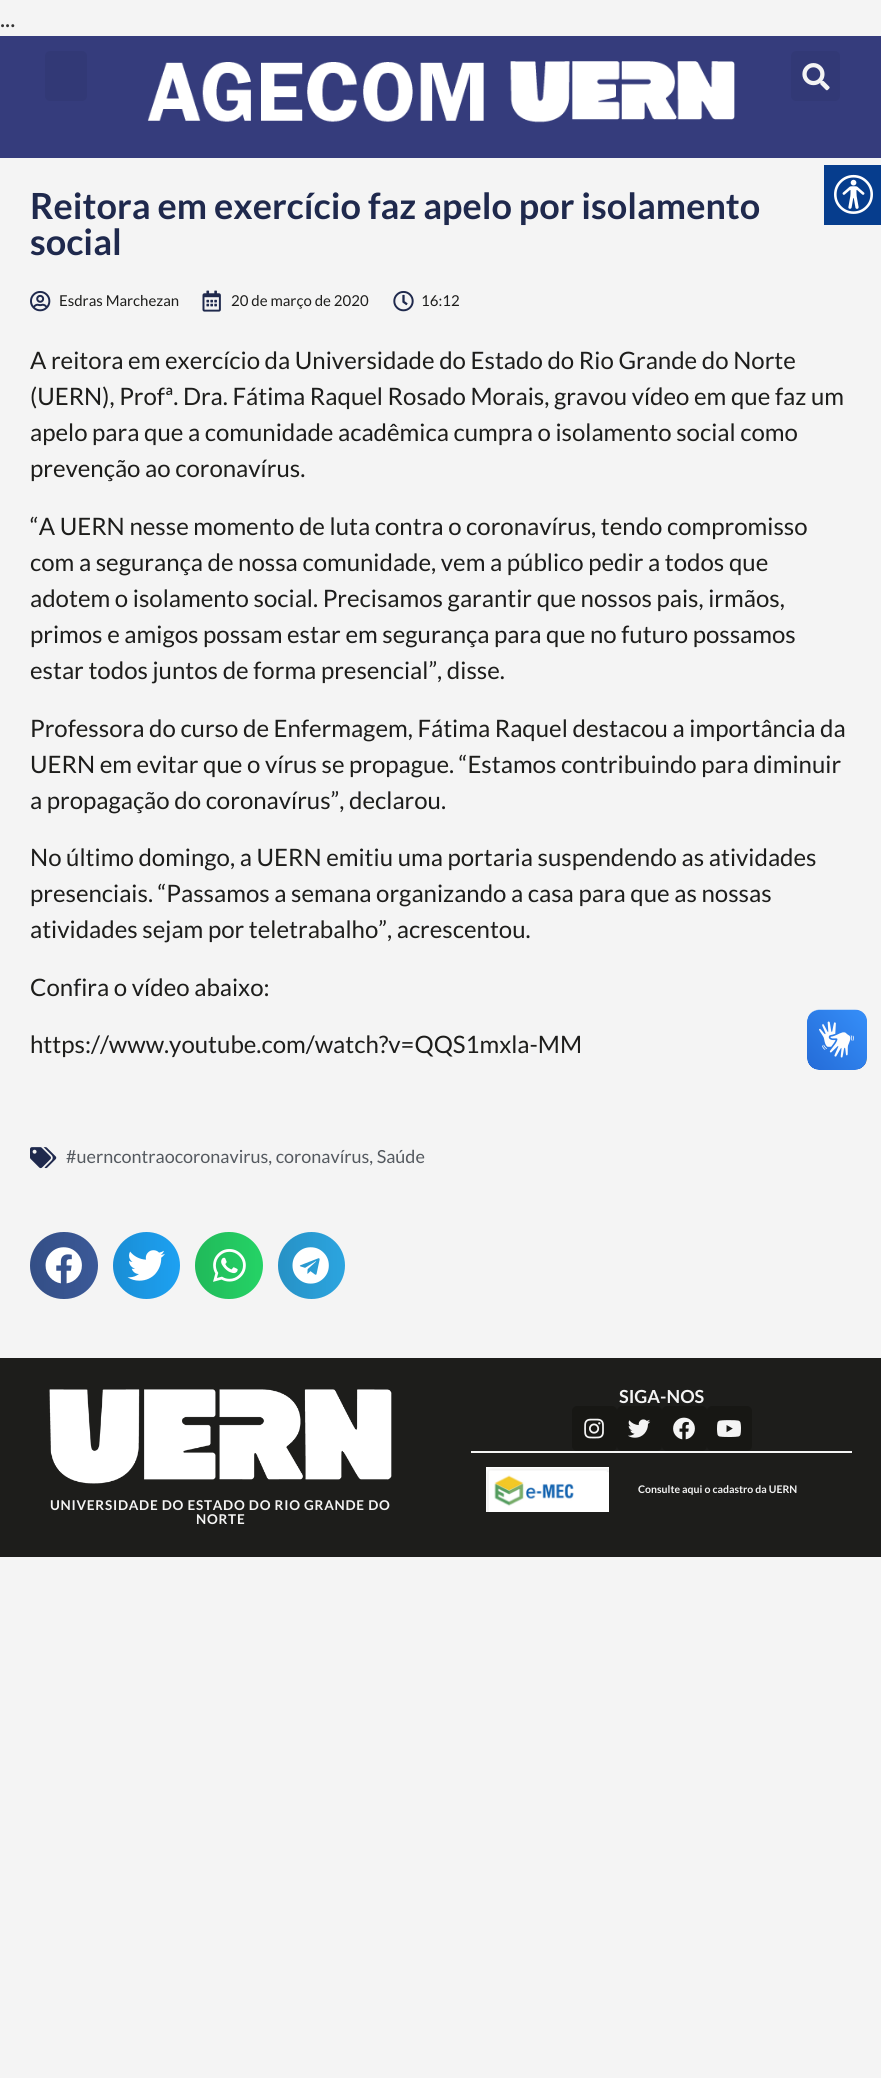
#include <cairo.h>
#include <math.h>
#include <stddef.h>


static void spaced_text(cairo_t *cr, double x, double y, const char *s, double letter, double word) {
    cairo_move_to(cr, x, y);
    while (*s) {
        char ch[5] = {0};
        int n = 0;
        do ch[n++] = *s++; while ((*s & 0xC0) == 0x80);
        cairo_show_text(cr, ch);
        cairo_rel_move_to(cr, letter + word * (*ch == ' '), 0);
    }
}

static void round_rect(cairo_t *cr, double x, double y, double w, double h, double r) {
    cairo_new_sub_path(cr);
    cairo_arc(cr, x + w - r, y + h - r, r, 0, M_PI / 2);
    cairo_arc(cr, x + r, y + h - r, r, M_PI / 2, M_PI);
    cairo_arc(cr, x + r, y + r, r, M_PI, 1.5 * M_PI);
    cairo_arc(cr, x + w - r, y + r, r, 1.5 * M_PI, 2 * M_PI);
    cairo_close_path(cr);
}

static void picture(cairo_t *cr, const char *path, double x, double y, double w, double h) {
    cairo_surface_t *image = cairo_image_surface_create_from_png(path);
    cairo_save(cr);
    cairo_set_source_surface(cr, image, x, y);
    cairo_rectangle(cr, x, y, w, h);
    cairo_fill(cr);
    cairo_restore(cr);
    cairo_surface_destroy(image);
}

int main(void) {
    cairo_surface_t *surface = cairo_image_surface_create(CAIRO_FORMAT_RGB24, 881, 2078);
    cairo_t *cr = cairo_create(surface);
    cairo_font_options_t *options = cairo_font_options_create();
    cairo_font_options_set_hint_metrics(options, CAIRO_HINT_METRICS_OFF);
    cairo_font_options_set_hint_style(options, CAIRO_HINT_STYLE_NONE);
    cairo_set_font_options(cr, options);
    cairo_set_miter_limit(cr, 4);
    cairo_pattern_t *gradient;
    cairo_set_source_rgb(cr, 0.957, 0.957, 0.957);
    cairo_paint(cr);
    cairo_select_font_face(cr, "Lato", CAIRO_FONT_SLANT_NORMAL, CAIRO_FONT_WEIGHT_NORMAL);
    cairo_set_font_size(cr, 24);
    cairo_set_source_rgb(cr, 0.2, 0.2, 0.2);
    cairo_move_to(cr, 0, 27);
    cairo_show_text(cr, "...");
    cairo_set_source_rgb(cr, 0.208, 0.235, 0.486);
    cairo_rectangle(cr, 0, 36, 881, 122);
    cairo_fill(cr);
    cairo_set_source_rgb(cr, 0.196, 0.224, 0.463);
    round_rect(cr, 45, 51, 42, 50, 5);
    cairo_fill(cr);
    picture(cr, "img1.png", 147, 61, 588, 62);
    round_rect(cr, 791, 51, 49, 50, 5);
    cairo_fill(cr);
    picture(cr, "img2.png", 802, 63, 28, 28);
    cairo_select_font_face(cr, "Lato", CAIRO_FONT_SLANT_NORMAL, CAIRO_FONT_WEIGHT_BOLD);
    cairo_set_font_size(cr, 36);
    cairo_set_source_rgb(cr, 0.122, 0.161, 0.302);
    cairo_move_to(cr, 30, 219);
    cairo_show_text(cr, "Reitora em exercício faz apelo por isolamento");
    cairo_move_to(cr, 30, 255);
    cairo_show_text(cr, "social");
    picture(cr, "img3.png", 30, 291, 21, 21);
    cairo_select_font_face(cr, "Lato", CAIRO_FONT_SLANT_NORMAL, CAIRO_FONT_WEIGHT_NORMAL);
    cairo_set_font_size(cr, 15);
    cairo_set_source_rgb(cr, 0.114, 0.114, 0.106);
    cairo_move_to(cr, 59, 306);
    cairo_show_text(cr, "Esdras Marchezan");
    picture(cr, "img4.png", 202, 290, 19, 22);
    cairo_move_to(cr, 231, 306);
    cairo_show_text(cr, "20 de março de 2020");
    picture(cr, "img5.png", 393, 291, 21, 21);
    cairo_move_to(cr, 421, 306);
    cairo_show_text(cr, "16:12");
    cairo_set_font_size(cr, 24);
    cairo_move_to(cr, 30, 369);
    cairo_show_text(cr, "A reitora em exercício da Universidade do Estado do Rio Grande do Norte");
    cairo_move_to(cr, 30, 405);
    cairo_show_text(cr, "(UERN), Profª. Dra. Fátima Raquel Rosado Morais, gravou vídeo em que faz um");
    cairo_move_to(cr, 30, 441);
    cairo_show_text(cr, "apelo para que a comunidade acadêmica cumpra o isolamento social como");
    cairo_move_to(cr, 30, 477);
    cairo_show_text(cr, "prevenção ao coronavírus.");
    cairo_move_to(cr, 30, 535);
    cairo_show_text(cr, "“A UERN nesse momento de luta contra o coronavírus, tendo compromisso");
    cairo_move_to(cr, 30, 571);
    cairo_show_text(cr, "com a segurança de nossa comunidade, vem a público pedir a todos que");
    cairo_move_to(cr, 30, 607);
    cairo_show_text(cr, "adotem o isolamento social. Precisamos garantir que nossos pais, irmãos,");
    cairo_move_to(cr, 30, 643);
    cairo_show_text(cr, "primos e amigos possam estar em segurança para que no futuro possamos");
    cairo_move_to(cr, 30, 679);
    cairo_show_text(cr, "estar todos juntos de forma presencial”, disse.");
    cairo_move_to(cr, 30, 737);
    cairo_show_text(cr, "Professora do curso de Enfermagem, Fátima Raquel destacou a importância da");
    cairo_move_to(cr, 30, 773);
    cairo_show_text(cr, "UERN em evitar que o vírus se propague. “Estamos contribuindo para diminuir");
    cairo_move_to(cr, 30, 809);
    cairo_show_text(cr, "a propagação do coronavírus”, declarou.");
    cairo_move_to(cr, 30, 866);
    cairo_show_text(cr, "No último domingo, a UERN emitiu uma portaria suspendendo as atividades");
    cairo_move_to(cr, 30, 902);
    cairo_show_text(cr, "presenciais. “Passamos a semana organizando a casa para que as nossas");
    cairo_move_to(cr, 30, 938);
    cairo_show_text(cr, "atividades sejam por teletrabalho”, acrescentou.");
    cairo_move_to(cr, 30, 996);
    cairo_show_text(cr, "Confira o vídeo abaixo:");
    cairo_move_to(cr, 30, 1053);
    cairo_show_text(cr, "https://www.youtube.com/watch?v=QQS1mxla-MM");
    picture(cr, "img6.png", 30, 1147, 27, 22);
    cairo_set_font_size(cr, 18);
    cairo_set_source_rgb(cr, 0.329, 0.349, 0.373);
    cairo_move_to(cr, 66, 1163);
    cairo_show_text(cr, "#uerncontraocoronavirus, coronavírus, Saúde");
    cairo_set_source_rgb(cr, 0.231, 0.349, 0.596);
    round_rect(cr, 30, 1232, 68, 67, 33.5);
    cairo_fill(cr);
    gradient = cairo_pattern_create_linear(30, 1265, 98, 1265);
    cairo_pattern_add_color_stop_rgba(gradient, 0, 0, 0, 0, 0.12);
    cairo_pattern_add_color_stop_rgba(gradient, 1, 0, 0, 0, 0);
    cairo_set_source(cr, gradient);
    cairo_pattern_destroy(gradient);
    round_rect(cr, 30, 1232, 68, 67, 33.5);
    cairo_fill(cr);
    picture(cr, "img7.png", 45, 1247, 37, 37);
    cairo_set_source_rgb(cr, 0.114, 0.631, 0.949);
    cairo_arc(cr, 146.5, 1265.5, 33.5, 0, 2 * M_PI);
    cairo_fill(cr);
    gradient = cairo_pattern_create_linear(113, 1265, 180, 1265);
    cairo_pattern_add_color_stop_rgba(gradient, 0, 0, 0, 0, 0.12);
    cairo_pattern_add_color_stop_rgba(gradient, 1, 0, 0, 0, 0);
    cairo_set_source(cr, gradient);
    cairo_pattern_destroy(gradient);
    cairo_arc(cr, 146.5, 1265.5, 33.5, 0, 2 * M_PI);
    cairo_fill(cr);
    picture(cr, "img8.png", 127, 1250, 38, 31);
    cairo_set_source_rgb(cr, 0.145, 0.827, 0.4);
    round_rect(cr, 195, 1232, 68, 67, 33.5);
    cairo_fill(cr);
    gradient = cairo_pattern_create_linear(195, 1265, 263, 1265);
    cairo_pattern_add_color_stop_rgba(gradient, 0, 0, 0, 0, 0.12);
    cairo_pattern_add_color_stop_rgba(gradient, 1, 0, 0, 0, 0);
    cairo_set_source(cr, gradient);
    cairo_pattern_destroy(gradient);
    round_rect(cr, 195, 1232, 68, 67, 33.5);
    cairo_fill(cr);
    picture(cr, "img9.png", 213, 1249, 33, 33);
    cairo_set_source_rgb(cr, 0.173, 0.647, 0.878);
    cairo_arc(cr, 311.5, 1265.5, 33.5, 0, 2 * M_PI);
    cairo_fill(cr);
    gradient = cairo_pattern_create_linear(278, 1265, 345, 1265);
    cairo_pattern_add_color_stop_rgba(gradient, 0, 0, 0, 0, 0.12);
    cairo_pattern_add_color_stop_rgba(gradient, 1, 0, 0, 0, 0);
    cairo_set_source(cr, gradient);
    cairo_pattern_destroy(gradient);
    cairo_arc(cr, 311.5, 1265.5, 33.5, 0, 2 * M_PI);
    cairo_fill(cr);
    picture(cr, "img10.png", 292, 1247, 37, 37);
    cairo_set_source_rgb(cr, 0.024, 0.239, 0.553);
    cairo_rectangle(cr, 824, 165, 57, 60);
    cairo_fill(cr);
    picture(cr, "img11.png", 834, 174, 39, 40);
    picture(cr, "img12.png", 807, 1009, 60, 61);
    picture(cr, "img13.png", 807, 1010, 60, 60);
    cairo_set_source_rgb(cr, 0.114, 0.114, 0.106);
    cairo_rectangle(cr, 0, 1358, 881, 199);
    cairo_fill(cr);
    cairo_select_font_face(cr, "Lato", CAIRO_FONT_SLANT_NORMAL, CAIRO_FONT_WEIGHT_BOLD);
    cairo_set_source_rgb(cr, 0.957, 0.957, 0.957);
    cairo_move_to(cr, 619, 1403);
    cairo_show_text(cr, "SIGA-NOS");
    cairo_set_source_rgb(cr, 0.09, 0.09, 0.082);
    round_rect(cr, 572, 1406, 45, 45, 5);
    cairo_fill(cr);
    picture(cr, "img14.png", 584, 1418, 20, 21);
    round_rect(cr, 617, 1406, 45, 45, 5);
    cairo_fill(cr);
    picture(cr, "img15.png", 628, 1419, 23, 19);
    round_rect(cr, 662, 1406, 45, 45, 5);
    cairo_fill(cr);
    picture(cr, "img16.png", 673, 1417, 22, 23);
    round_rect(cr, 707, 1406, 45, 45, 5);
    cairo_fill(cr);
    picture(cr, "img17.png", 717, 1420, 24, 17);
    cairo_set_source_rgb(cr, 0.957, 0.957, 0.957);
    cairo_rectangle(cr, 471, 1451, 381, 2);
    cairo_fill(cr);
    picture(cr, "img18.png", 486, 1467, 123, 45);
    cairo_set_font_size(cr, 10.5);
    cairo_move_to(cr, 638, 1493);
    cairo_show_text(cr, "Consulte aqui o cadastro da UERN");
    picture(cr, "img19.png", 49, 1389, 343, 95);
    cairo_set_font_size(cr, 13.5);
    spaced_text(cr, 50, 1510, "UNIVERSIDADE DO ESTADO DO RIO GRANDE DO", 0.75, 0);
    spaced_text(cr, 196, 1524, "NORTE", 0.75, 0);
    cairo_surface_write_to_png(surface, "page.png");
    cairo_font_options_destroy(options);
    cairo_destroy(cr);
    cairo_surface_destroy(surface);
    return 0;
}
